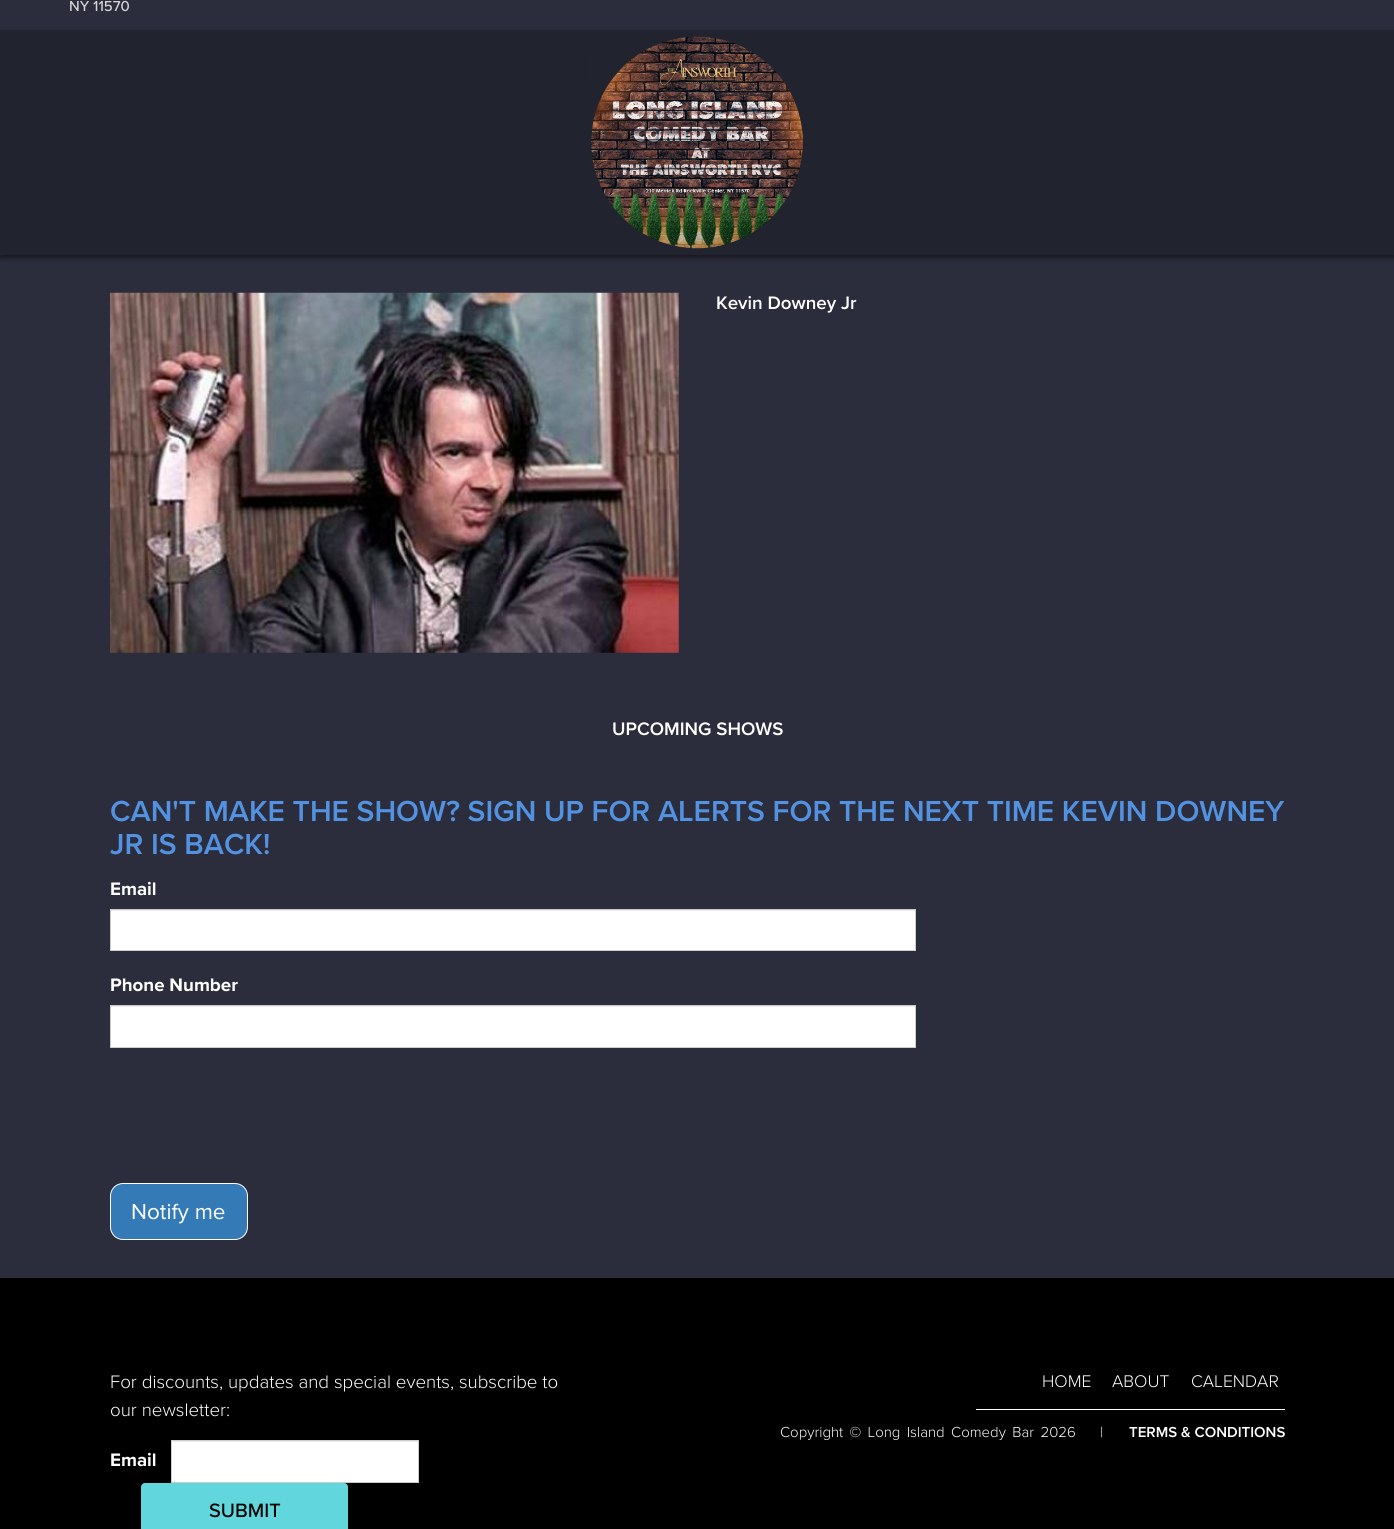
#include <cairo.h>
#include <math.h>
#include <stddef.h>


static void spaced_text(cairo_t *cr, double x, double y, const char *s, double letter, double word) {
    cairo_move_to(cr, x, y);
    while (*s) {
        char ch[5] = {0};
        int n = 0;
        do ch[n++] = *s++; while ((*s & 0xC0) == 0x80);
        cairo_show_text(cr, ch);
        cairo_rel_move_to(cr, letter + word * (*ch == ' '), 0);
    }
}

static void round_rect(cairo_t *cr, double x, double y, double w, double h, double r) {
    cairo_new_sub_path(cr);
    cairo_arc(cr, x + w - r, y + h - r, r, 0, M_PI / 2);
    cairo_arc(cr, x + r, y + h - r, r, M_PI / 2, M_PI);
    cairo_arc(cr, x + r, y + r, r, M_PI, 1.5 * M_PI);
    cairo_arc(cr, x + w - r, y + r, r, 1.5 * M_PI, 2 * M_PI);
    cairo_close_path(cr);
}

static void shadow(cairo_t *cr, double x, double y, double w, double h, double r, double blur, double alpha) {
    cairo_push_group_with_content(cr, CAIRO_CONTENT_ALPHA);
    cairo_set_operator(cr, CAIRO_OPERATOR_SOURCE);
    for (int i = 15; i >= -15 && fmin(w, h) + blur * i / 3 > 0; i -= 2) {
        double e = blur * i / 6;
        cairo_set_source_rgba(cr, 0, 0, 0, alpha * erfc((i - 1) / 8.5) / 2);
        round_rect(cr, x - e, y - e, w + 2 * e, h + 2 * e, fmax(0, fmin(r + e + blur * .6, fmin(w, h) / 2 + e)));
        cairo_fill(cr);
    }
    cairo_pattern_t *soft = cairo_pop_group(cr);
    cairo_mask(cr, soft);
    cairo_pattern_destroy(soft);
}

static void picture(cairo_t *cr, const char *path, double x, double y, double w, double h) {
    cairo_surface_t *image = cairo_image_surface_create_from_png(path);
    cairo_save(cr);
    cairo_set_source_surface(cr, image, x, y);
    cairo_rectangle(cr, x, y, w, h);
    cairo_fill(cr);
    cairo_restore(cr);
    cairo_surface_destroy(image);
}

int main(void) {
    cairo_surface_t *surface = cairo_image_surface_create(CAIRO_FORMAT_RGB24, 1394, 1529);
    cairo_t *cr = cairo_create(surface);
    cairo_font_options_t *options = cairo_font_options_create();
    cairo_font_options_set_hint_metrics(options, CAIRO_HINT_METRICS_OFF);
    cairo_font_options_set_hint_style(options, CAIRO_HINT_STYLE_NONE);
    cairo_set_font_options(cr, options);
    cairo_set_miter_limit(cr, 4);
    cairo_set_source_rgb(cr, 0.169, 0.176, 0.235);
    cairo_paint(cr);
    cairo_select_font_face(cr, "Proxima Nova Medium", CAIRO_FONT_SLANT_NORMAL, CAIRO_FONT_WEIGHT_NORMAL);
    cairo_set_font_size(cr, 15);
    cairo_set_source_rgb(cr, 0.835, 0.835, 0.835);
    cairo_move_to(cr, 69, 11);
    cairo_show_text(cr, "NY 11570");
    cairo_set_source_rgb(cr, 0, 0, 0);
    shadow(cr, 0, 33, 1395, 225, 0, 2.5, 0.5);
    cairo_set_source_rgb(cr, 0.129, 0.137, 0.18);
    cairo_rectangle(cr, 0, 30, 1394, 225);
    cairo_fill(cr);
    picture(cr, "img1.png", 591, 36, 212, 213);
    picture(cr, "img2.png", 110, 292, 569, 361);
    cairo_select_font_face(cr, "Proxima Nova SemiBold", CAIRO_FONT_SLANT_NORMAL, CAIRO_FONT_WEIGHT_NORMAL);
    cairo_set_font_size(cr, 18.75);
    cairo_set_source_rgb(cr, 1, 1, 1);
    cairo_move_to(cr, 716, 309);
    cairo_show_text(cr, "Kevin Downey Jr");
    cairo_move_to(cr, 612, 735);
    cairo_show_text(cr, "UPCOMING SHOWS");
    cairo_set_font_size(cr, 30);
    cairo_set_source_rgb(cr, 0.322, 0.573, 0.882);
    cairo_move_to(cr, 110, 821);
    cairo_show_text(cr, "CAN'T MAKE THE SHOW? SIGN UP FOR ALERTS FOR THE NEXT TIME KEVIN DOWNEY");
    cairo_move_to(cr, 110, 854);
    cairo_show_text(cr, "JR IS BACK!");
    cairo_select_font_face(cr, "Proxima Nova", CAIRO_FONT_SLANT_NORMAL, CAIRO_FONT_WEIGHT_BOLD);
    cairo_set_font_size(cr, 18.75);
    cairo_set_source_rgb(cr, 1, 1, 1);
    cairo_move_to(cr, 110, 895);
    cairo_show_text(cr, "Email");
    cairo_rectangle(cr, 111, 911, 804, 39);
    cairo_fill(cr);
    cairo_set_source_rgb(cr, 0.925, 0.925, 0.925);
    cairo_rectangle(cr, 111, 910, 804, 1);
    cairo_fill(cr);
    cairo_rectangle(cr, 110.5, 909.5, 805, 41);
    cairo_set_source_rgb(cr, 0.8, 0.8, 0.8);
    cairo_set_line_width(cr, 1);
    cairo_stroke(cr);
    cairo_set_source_rgb(cr, 1, 1, 1);
    cairo_move_to(cr, 110, 991);
    cairo_show_text(cr, "Phone Number");
    cairo_rectangle(cr, 111, 1007, 804, 40);
    cairo_fill(cr);
    cairo_set_source_rgb(cr, 0.925, 0.925, 0.925);
    cairo_rectangle(cr, 111, 1006, 804, 1);
    cairo_fill(cr);
    cairo_rectangle(cr, 110.5, 1005.5, 805, 42);
    cairo_set_source_rgb(cr, 0.8, 0.8, 0.8);
    cairo_stroke(cr);
    cairo_set_source_rgb(cr, 0.2, 0.478, 0.718);
    round_rect(cr, 110.5, 1183.5, 137, 56, 12.5);
    cairo_fill_preserve(cr);
    cairo_set_source_rgb(cr, 1, 1, 1);
    cairo_stroke(cr);
    cairo_select_font_face(cr, "Proxima Nova", CAIRO_FONT_SLANT_NORMAL, CAIRO_FONT_WEIGHT_NORMAL);
    cairo_set_font_size(cr, 22.5);
    cairo_move_to(cr, 131, 1219);
    cairo_show_text(cr, "Notify me");
    cairo_set_source_rgb(cr, 0, 0, 0);
    cairo_rectangle(cr, 0, 1278, 1394, 251);
    cairo_fill(cr);
    cairo_select_font_face(cr, "Proxima Nova Light", CAIRO_FONT_SLANT_NORMAL, CAIRO_FONT_WEIGHT_NORMAL);
    cairo_set_font_size(cr, 18.75);
    cairo_set_source_rgb(cr, 1, 1, 1);
    cairo_move_to(cr, 110, 1388);
    cairo_show_text(cr, "For discounts, updates and special events, subscribe to");
    cairo_move_to(cr, 110, 1416);
    cairo_show_text(cr, "our newsletter:");
    cairo_select_font_face(cr, "Proxima Nova", CAIRO_FONT_SLANT_NORMAL, CAIRO_FONT_WEIGHT_BOLD);
    cairo_move_to(cr, 110, 1466);
    cairo_show_text(cr, "Email");
    cairo_rectangle(cr, 172, 1441, 246, 41);
    cairo_fill(cr);
    cairo_set_source_rgb(cr, 0.925, 0.925, 0.925);
    cairo_rectangle(cr, 173, 1441, 245, 1);
    cairo_fill(cr);
    cairo_rectangle(cr, 171.5, 1440.5, 247, 42);
    cairo_set_source_rgb(cr, 0.8, 0.8, 0.8);
    cairo_stroke(cr);
    cairo_set_source_rgb(cr, 0.38, 0.839, 0.867);
    round_rect(cr, 141, 1483, 207, 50, 4);
    cairo_fill(cr);
    cairo_select_font_face(cr, "Proxima Nova Medium", CAIRO_FONT_SLANT_NORMAL, CAIRO_FONT_WEIGHT_NORMAL);
    cairo_set_font_size(cr, 20);
    cairo_set_source_rgb(cr, 0, 0, 0);
    cairo_move_to(cr, 209, 1517);
    cairo_show_text(cr, "SUBMIT");
    cairo_set_source_rgb(cr, 1, 1, 1);
    cairo_rectangle(cr, 976, 1409, 309, 1);
    cairo_fill(cr);
    cairo_select_font_face(cr, "Proxima Nova Light", CAIRO_FONT_SLANT_NORMAL, CAIRO_FONT_WEIGHT_NORMAL);
    cairo_set_font_size(cr, 17.5);
    cairo_move_to(cr, 1042, 1387);
    cairo_show_text(cr, "HOME");
    cairo_move_to(cr, 1112, 1387);
    cairo_show_text(cr, "ABOUT");
    cairo_move_to(cr, 1191, 1387);
    cairo_show_text(cr, "CALENDAR");
    cairo_set_font_size(cr, 15);
    spaced_text(cr, 780, 1437, "Copyright © Long Island Comedy Bar 2026", 0, 2.5);
    cairo_move_to(cr, 1100, 1437);
    cairo_show_text(cr, "|");
    cairo_select_font_face(cr, "Proxima Nova SemiBold", CAIRO_FONT_SLANT_NORMAL, CAIRO_FONT_WEIGHT_NORMAL);
    cairo_move_to(cr, 1129, 1437);
    cairo_show_text(cr, "TERMS & CONDITIONS");
    cairo_surface_write_to_png(surface, "page.png");
    cairo_font_options_destroy(options);
    cairo_destroy(cr);
    cairo_surface_destroy(surface);
    return 0;
}
